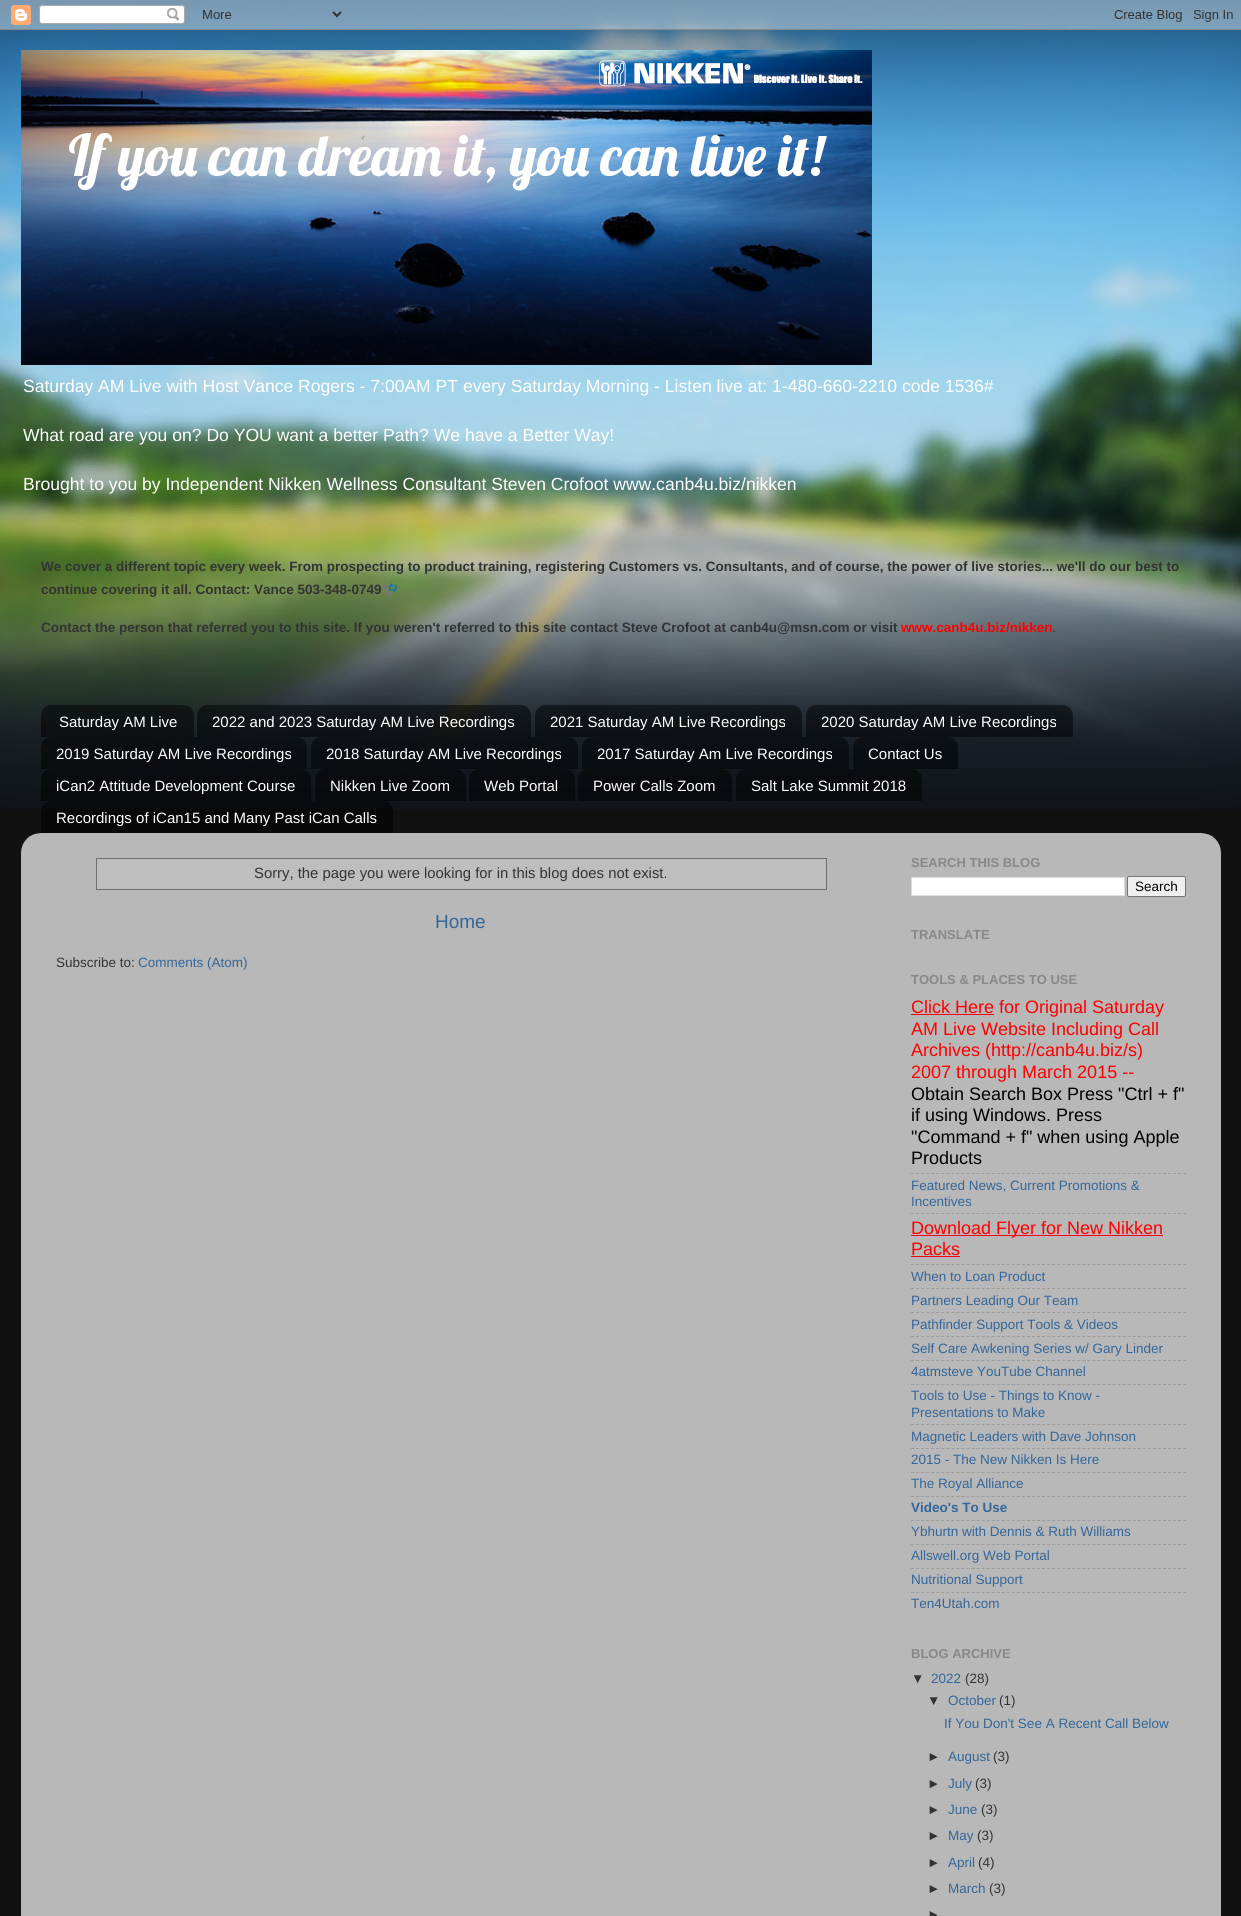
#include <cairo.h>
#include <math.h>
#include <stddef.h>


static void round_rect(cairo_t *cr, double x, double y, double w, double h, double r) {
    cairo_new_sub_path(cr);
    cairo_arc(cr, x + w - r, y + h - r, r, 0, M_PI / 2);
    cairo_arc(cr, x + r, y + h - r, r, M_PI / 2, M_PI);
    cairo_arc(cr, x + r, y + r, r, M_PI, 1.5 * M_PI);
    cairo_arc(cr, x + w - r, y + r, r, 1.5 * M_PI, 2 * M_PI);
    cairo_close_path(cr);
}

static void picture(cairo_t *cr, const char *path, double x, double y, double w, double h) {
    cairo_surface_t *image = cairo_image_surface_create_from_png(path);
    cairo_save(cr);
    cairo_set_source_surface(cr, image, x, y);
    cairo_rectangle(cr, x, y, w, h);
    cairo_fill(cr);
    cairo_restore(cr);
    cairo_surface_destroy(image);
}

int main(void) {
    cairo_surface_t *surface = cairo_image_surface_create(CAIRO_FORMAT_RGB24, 1241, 1916);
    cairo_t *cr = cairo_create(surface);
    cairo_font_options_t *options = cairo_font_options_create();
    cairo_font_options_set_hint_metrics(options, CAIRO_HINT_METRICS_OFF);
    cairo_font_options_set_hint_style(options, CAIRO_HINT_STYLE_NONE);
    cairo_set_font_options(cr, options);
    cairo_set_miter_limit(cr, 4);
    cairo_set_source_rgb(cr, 0.067, 0.067, 0.067);
    cairo_paint(cr);
    picture(cr, "img1.png", 0, 0, 1241, 809);
    picture(cr, "img2.png", 0, 0, 1241, 30);
    picture(cr, "img3.png", 21, 50, 851, 315);
    cairo_select_font_face(cr, "Liberation Sans", CAIRO_FONT_SLANT_NORMAL, CAIRO_FONT_WEIGHT_NORMAL);
    cairo_set_font_size(cr, 17.55);
    cairo_set_source_rgb(cr, 1, 1, 1);
    cairo_move_to(cr, 23, 392);
    cairo_show_text(cr, "Saturday AM Live with Host Vance Rogers - 7:00AM PT every Saturday Morning - Listen live at: 1-480-660-2210 code 1536#");
    cairo_move_to(cr, 23, 441);
    cairo_show_text(cr, "What road are you on? Do YOU want a better Path? We have a Better Way!");
    cairo_move_to(cr, 23, 490);
    cairo_show_text(cr, "Brought to you by Independent Nikken Wellness Consultant Steven Crofoot www.canb4u.biz/nikken");
    cairo_select_font_face(cr, "Liberation Sans", CAIRO_FONT_SLANT_NORMAL, CAIRO_FONT_WEIGHT_BOLD);
    cairo_set_font_size(cr, 13.5);
    cairo_set_source_rgb(cr, 0.2, 0.2, 0.2);
    cairo_move_to(cr, 41, 571);
    cairo_show_text(cr, "We cover a different topic every week. From prospecting to product training, registering Customers vs. Consultants, and of course, the power of live stories... we'll do our best to");
    cairo_move_to(cr, 41, 594);
    cairo_show_text(cr, "continue covering it all. Contact: Vance 503-348-0749");
    picture(cr, "img4.png", 384, 583, 13, 13);
    cairo_move_to(cr, 41, 632);
    cairo_show_text(cr, "Contact the person that referred you to this site. If you weren't referred to this site contact Steve Crofoot at canb4u@msn.com or visit");
    cairo_set_source_rgb(cr, 1, 0, 0);
    cairo_move_to(cr, 901, 632);
    cairo_show_text(cr, "www.canb4u.biz/nikken");
    cairo_select_font_face(cr, "Liberation Sans", CAIRO_FONT_SLANT_NORMAL, CAIRO_FONT_WEIGHT_NORMAL);
    cairo_set_source_rgb(cr, 0.2, 0.2, 0.2);
    cairo_move_to(cr, 1052, 632);
    cairo_show_text(cr, ".");
    picture(cr, "img5.png", 41, 705, 153, 32);
    cairo_set_font_size(cr, 15);
    cairo_set_source_rgb(cr, 1, 1, 1);
    cairo_move_to(cr, 59, 727);
    cairo_show_text(cr, "Saturday AM Live");
    picture(cr, "img6.png", 197, 705, 334, 32);
    cairo_move_to(cr, 212, 727);
    cairo_show_text(cr, "2022 and 2023 Saturday AM Live Recordings");
    picture(cr, "img7.png", 535, 705, 267, 32);
    cairo_move_to(cr, 550, 727);
    cairo_show_text(cr, "2021 Saturday AM Live Recordings");
    picture(cr, "img8.png", 806, 705, 267, 32);
    cairo_move_to(cr, 821, 727);
    cairo_show_text(cr, "2020 Saturday AM Live Recordings");
    picture(cr, "img9.png", 41, 737, 266, 32);
    cairo_move_to(cr, 56, 759);
    cairo_show_text(cr, "2019 Saturday AM Live Recordings");
    picture(cr, "img10.png", 311, 737, 267, 32);
    cairo_move_to(cr, 326, 759);
    cairo_show_text(cr, "2018 Saturday AM Live Recordings");
    picture(cr, "img11.png", 582, 737, 267, 32);
    cairo_move_to(cr, 597, 759);
    cairo_show_text(cr, "2017 Saturday Am Live Recordings");
    picture(cr, "img12.png", 853, 737, 105, 32);
    cairo_move_to(cr, 868, 759);
    cairo_show_text(cr, "Contact Us");
    picture(cr, "img13.png", 41, 769, 270, 32);
    cairo_move_to(cr, 56, 791);
    cairo_show_text(cr, "iCan2 Attitude Development Course");
    picture(cr, "img14.png", 315, 769, 151, 32);
    cairo_move_to(cr, 330, 791);
    cairo_show_text(cr, "Nikken Live Zoom");
    picture(cr, "img15.png", 469, 769, 106, 32);
    cairo_move_to(cr, 484, 791);
    cairo_show_text(cr, "Web Portal");
    picture(cr, "img16.png", 578, 769, 154, 32);
    cairo_move_to(cr, 593, 791);
    cairo_show_text(cr, "Power Calls Zoom");
    picture(cr, "img17.png", 736, 769, 186, 32);
    cairo_move_to(cr, 751, 791);
    cairo_show_text(cr, "Salt Lake Summit 2018");
    picture(cr, "img18.png", 41, 801, 352, 32);
    cairo_move_to(cr, 56, 823);
    cairo_show_text(cr, "Recordings of iCan15 and Many Past iCan Calls");
    picture(cr, "img19.png", 21, 833, 1200, 1083);
    cairo_rectangle(cr, 96.5, 858.5, 730, 31);
    cairo_set_source_rgb(cr, 0.431, 0.431, 0.431);
    cairo_set_line_width(cr, 1);
    cairo_stroke(cr);
    cairo_set_source_rgb(cr, 0.745, 0.745, 0.745);
    cairo_rectangle(cr, 97, 859, 729, 30);
    cairo_fill(cr);
    cairo_set_font_size(cr, 14.85);
    cairo_set_source_rgb(cr, 0.2, 0.2, 0.2);
    cairo_move_to(cr, 254, 878);
    cairo_show_text(cr, "Sorry, the page you were looking for in this blog does not exist.");
    cairo_set_font_size(cr, 19);
    cairo_set_source_rgb(cr, 0.2, 0.4, 0.6);
    cairo_move_to(cr, 435, 928);
    cairo_show_text(cr, "Home");
    cairo_set_font_size(cr, 13.5);
    cairo_set_source_rgb(cr, 0.2, 0.2, 0.2);
    cairo_move_to(cr, 56, 967);
    cairo_show_text(cr, "Subscribe to:");
    cairo_set_source_rgb(cr, 0.2, 0.4, 0.6);
    cairo_move_to(cr, 138, 967);
    cairo_show_text(cr, "Comments (Atom)");
    cairo_select_font_face(cr, "Liberation Sans", CAIRO_FONT_SLANT_NORMAL, CAIRO_FONT_WEIGHT_BOLD);
    cairo_set_font_size(cr, 13);
    cairo_set_source_rgb(cr, 0.533, 0.533, 0.533);
    cairo_move_to(cr, 911, 867);
    cairo_show_text(cr, "SEARCH THIS BLOG");
    cairo_set_source_rgb(cr, 1, 1, 1);
    cairo_rectangle(cr, 911.5, 877.5, 213, 18);
    cairo_fill_preserve(cr);
    cairo_set_source_rgb(cr, 0.867, 0.867, 0.867);
    cairo_stroke(cr);
    cairo_set_source_rgb(cr, 0.937, 0.937, 0.937);
    round_rect(cr, 1127.5, 876.5, 58, 20, 1.5);
    cairo_fill_preserve(cr);
    cairo_set_source_rgb(cr, 0.463, 0.463, 0.463);
    cairo_stroke(cr);
    cairo_select_font_face(cr, "Liberation Sans", CAIRO_FONT_SLANT_NORMAL, CAIRO_FONT_WEIGHT_NORMAL);
    cairo_set_font_size(cr, 13.5);
    cairo_set_source_rgb(cr, 0, 0, 0);
    cairo_move_to(cr, 1135, 891);
    cairo_show_text(cr, "Search");
    cairo_select_font_face(cr, "Liberation Sans", CAIRO_FONT_SLANT_NORMAL, CAIRO_FONT_WEIGHT_BOLD);
    cairo_set_font_size(cr, 13);
    cairo_set_source_rgb(cr, 0.533, 0.533, 0.533);
    cairo_move_to(cr, 911, 939);
    cairo_show_text(cr, "TRANSLATE");
    cairo_move_to(cr, 911, 984);
    cairo_show_text(cr, "TOOLS & PLACES TO USE");
    cairo_set_source_rgb(cr, 1, 0, 0);
    cairo_rectangle(cr, 911, 1014, 83, 1);
    cairo_fill(cr);
    cairo_select_font_face(cr, "Liberation Sans", CAIRO_FONT_SLANT_NORMAL, CAIRO_FONT_WEIGHT_NORMAL);
    cairo_set_font_size(cr, 18);
    cairo_move_to(cr, 911, 1013);
    cairo_show_text(cr, "Click Here for Original Saturday");
    cairo_move_to(cr, 911, 1035);
    cairo_show_text(cr, "AM Live Website Including Call");
    cairo_move_to(cr, 911, 1056);
    cairo_show_text(cr, "Archives (http://canb4u.biz/s)");
    cairo_move_to(cr, 911, 1078);
    cairo_show_text(cr, "2007 through March 2015 --");
    cairo_set_source_rgb(cr, 0, 0, 0);
    cairo_move_to(cr, 911, 1100);
    cairo_show_text(cr, "Obtain Search Box Press \"Ctrl + f\"");
    cairo_move_to(cr, 911, 1121);
    cairo_show_text(cr, "if using Windows. Press");
    cairo_move_to(cr, 911, 1143);
    cairo_show_text(cr, "\"Command + f\" when using Apple");
    cairo_move_to(cr, 911, 1164);
    cairo_show_text(cr, "Products");
    cairo_new_path(cr);
    cairo_move_to(cr, 911, 1173.5);
    cairo_line_to(cr, 1186, 1173.5);
    cairo_set_source_rgb(cr, 0.612, 0.612, 0.612);
    cairo_set_dash(cr, (double[]){3, 2.04}, 2, 0);
    cairo_stroke(cr);
    cairo_set_font_size(cr, 13.5);
    cairo_set_source_rgb(cr, 0.2, 0.4, 0.6);
    cairo_move_to(cr, 911, 1190);
    cairo_show_text(cr, "Featured News, Current Promotions &");
    cairo_move_to(cr, 911, 1206);
    cairo_show_text(cr, "Incentives");
    cairo_new_path(cr);
    cairo_move_to(cr, 911, 1213.5);
    cairo_line_to(cr, 1186, 1213.5);
    cairo_set_source_rgb(cr, 0.612, 0.612, 0.612);
    cairo_stroke(cr);
    cairo_set_source_rgb(cr, 1, 0, 0);
    cairo_rectangle(cr, 911, 1235, 252, 1);
    cairo_fill(cr);
    cairo_set_font_size(cr, 18);
    cairo_move_to(cr, 911, 1234);
    cairo_show_text(cr, "Download Flyer for New Nikken");
    cairo_move_to(cr, 911, 1255);
    cairo_show_text(cr, "Packs");
    cairo_rectangle(cr, 911, 1256, 49, 1);
    cairo_fill(cr);
    cairo_new_path(cr);
    cairo_move_to(cr, 911, 1264.5);
    cairo_line_to(cr, 1186, 1264.5);
    cairo_set_source_rgb(cr, 0.612, 0.612, 0.612);
    cairo_stroke(cr);
    cairo_set_font_size(cr, 13.5);
    cairo_set_source_rgb(cr, 0.2, 0.4, 0.6);
    cairo_move_to(cr, 911, 1281);
    cairo_show_text(cr, "When to Loan Product");
    cairo_new_path(cr);
    cairo_move_to(cr, 911, 1288.5);
    cairo_line_to(cr, 1186, 1288.5);
    cairo_set_source_rgb(cr, 0.612, 0.612, 0.612);
    cairo_stroke(cr);
    cairo_set_source_rgb(cr, 0.2, 0.4, 0.6);
    cairo_move_to(cr, 911, 1305);
    cairo_show_text(cr, "Partners Leading Our Team");
    cairo_new_path(cr);
    cairo_move_to(cr, 911, 1312.5);
    cairo_line_to(cr, 1186, 1312.5);
    cairo_set_source_rgb(cr, 0.612, 0.612, 0.612);
    cairo_stroke(cr);
    cairo_set_source_rgb(cr, 0.2, 0.4, 0.6);
    cairo_move_to(cr, 911, 1329);
    cairo_show_text(cr, "Pathfinder Support Tools & Videos");
    cairo_new_path(cr);
    cairo_move_to(cr, 911, 1336.5);
    cairo_line_to(cr, 1186, 1336.5);
    cairo_set_source_rgb(cr, 0.612, 0.612, 0.612);
    cairo_stroke(cr);
    cairo_set_source_rgb(cr, 0.2, 0.4, 0.6);
    cairo_move_to(cr, 911, 1353);
    cairo_show_text(cr, "Self Care Awkening Series w/ Gary Linder");
    cairo_new_path(cr);
    cairo_move_to(cr, 911, 1360.5);
    cairo_line_to(cr, 1186, 1360.5);
    cairo_set_source_rgb(cr, 0.612, 0.612, 0.612);
    cairo_stroke(cr);
    cairo_set_source_rgb(cr, 0.2, 0.4, 0.6);
    cairo_move_to(cr, 911, 1376);
    cairo_show_text(cr, "4atmsteve YouTube Channel");
    cairo_new_path(cr);
    cairo_move_to(cr, 911, 1384.5);
    cairo_line_to(cr, 1186, 1384.5);
    cairo_set_source_rgb(cr, 0.612, 0.612, 0.612);
    cairo_stroke(cr);
    cairo_set_source_rgb(cr, 0.2, 0.4, 0.6);
    cairo_move_to(cr, 911, 1400);
    cairo_show_text(cr, "Tools to Use - Things to Know -");
    cairo_move_to(cr, 911, 1417);
    cairo_show_text(cr, "Presentations to Make");
    cairo_new_path(cr);
    cairo_move_to(cr, 911, 1424.5);
    cairo_line_to(cr, 1186, 1424.5);
    cairo_set_source_rgb(cr, 0.612, 0.612, 0.612);
    cairo_stroke(cr);
    cairo_set_source_rgb(cr, 0.2, 0.4, 0.6);
    cairo_move_to(cr, 911, 1441);
    cairo_show_text(cr, "Magnetic Leaders with Dave Johnson");
    cairo_new_path(cr);
    cairo_move_to(cr, 911, 1448.5);
    cairo_line_to(cr, 1186, 1448.5);
    cairo_set_source_rgb(cr, 0.612, 0.612, 0.612);
    cairo_stroke(cr);
    cairo_set_source_rgb(cr, 0.2, 0.4, 0.6);
    cairo_move_to(cr, 911, 1464);
    cairo_show_text(cr, "2015 - The New Nikken Is Here");
    cairo_new_path(cr);
    cairo_move_to(cr, 911, 1472.5);
    cairo_line_to(cr, 1186, 1472.5);
    cairo_set_source_rgb(cr, 0.612, 0.612, 0.612);
    cairo_stroke(cr);
    cairo_set_source_rgb(cr, 0.2, 0.4, 0.6);
    cairo_move_to(cr, 911, 1488);
    cairo_show_text(cr, "The Royal Alliance");
    cairo_new_path(cr);
    cairo_move_to(cr, 911, 1496.5);
    cairo_line_to(cr, 1186, 1496.5);
    cairo_set_source_rgb(cr, 0.612, 0.612, 0.612);
    cairo_stroke(cr);
    cairo_select_font_face(cr, "Liberation Sans", CAIRO_FONT_SLANT_NORMAL, CAIRO_FONT_WEIGHT_BOLD);
    cairo_set_source_rgb(cr, 0.2, 0.4, 0.6);
    cairo_move_to(cr, 911, 1512);
    cairo_show_text(cr, "Video's To Use");
    cairo_new_path(cr);
    cairo_move_to(cr, 911, 1520.5);
    cairo_line_to(cr, 1186, 1520.5);
    cairo_set_source_rgb(cr, 0.612, 0.612, 0.612);
    cairo_stroke(cr);
    cairo_select_font_face(cr, "Liberation Sans", CAIRO_FONT_SLANT_NORMAL, CAIRO_FONT_WEIGHT_NORMAL);
    cairo_set_source_rgb(cr, 0.2, 0.4, 0.6);
    cairo_move_to(cr, 911, 1536);
    cairo_show_text(cr, "Ybhurtn with Dennis & Ruth Williams");
    cairo_new_path(cr);
    cairo_move_to(cr, 911, 1544.5);
    cairo_line_to(cr, 1186, 1544.5);
    cairo_set_source_rgb(cr, 0.612, 0.612, 0.612);
    cairo_stroke(cr);
    cairo_set_source_rgb(cr, 0.2, 0.4, 0.6);
    cairo_move_to(cr, 911, 1560);
    cairo_show_text(cr, "Allswell.org Web Portal");
    cairo_new_path(cr);
    cairo_move_to(cr, 911, 1568.5);
    cairo_line_to(cr, 1186, 1568.5);
    cairo_set_source_rgb(cr, 0.612, 0.612, 0.612);
    cairo_stroke(cr);
    cairo_set_source_rgb(cr, 0.2, 0.4, 0.6);
    cairo_move_to(cr, 911, 1584);
    cairo_show_text(cr, "Nutritional Support");
    cairo_new_path(cr);
    cairo_move_to(cr, 911, 1592.5);
    cairo_line_to(cr, 1186, 1592.5);
    cairo_set_source_rgb(cr, 0.612, 0.612, 0.612);
    cairo_stroke(cr);
    cairo_set_source_rgb(cr, 0.2, 0.4, 0.6);
    cairo_move_to(cr, 911, 1608);
    cairo_show_text(cr, "Ten4Utah.com");
    cairo_select_font_face(cr, "Liberation Sans", CAIRO_FONT_SLANT_NORMAL, CAIRO_FONT_WEIGHT_BOLD);
    cairo_set_font_size(cr, 13);
    cairo_set_source_rgb(cr, 0.533, 0.533, 0.533);
    cairo_move_to(cr, 911, 1658);
    cairo_show_text(cr, "BLOG ARCHIVE");
    cairo_select_font_face(cr, "Liberation Sans", CAIRO_FONT_SLANT_NORMAL, CAIRO_FONT_WEIGHT_NORMAL);
    cairo_set_font_size(cr, 13.5);
    cairo_set_source_rgb(cr, 0.2, 0.2, 0.2);
    cairo_move_to(cr, 911, 1683);
    cairo_show_text(cr, "▼");
    cairo_set_source_rgb(cr, 0.2, 0.4, 0.6);
    cairo_move_to(cr, 931, 1683);
    cairo_show_text(cr, "2022");
    cairo_set_source_rgb(cr, 0.2, 0.2, 0.2);
    cairo_move_to(cr, 965, 1683);
    cairo_show_text(cr, "(28)");
    cairo_move_to(cr, 927, 1705);
    cairo_show_text(cr, "▼");
    cairo_set_source_rgb(cr, 0.2, 0.4, 0.6);
    cairo_move_to(cr, 948, 1705);
    cairo_show_text(cr, "October");
    cairo_set_source_rgb(cr, 0.2, 0.2, 0.2);
    cairo_move_to(cr, 999, 1705);
    cairo_show_text(cr, "(1)");
    cairo_set_source_rgb(cr, 0.2, 0.4, 0.6);
    cairo_move_to(cr, 944, 1728);
    cairo_show_text(cr, "If You Don't See A Recent Call Below");
    cairo_set_source_rgb(cr, 0.2, 0.2, 0.2);
    cairo_move_to(cr, 927, 1761);
    cairo_show_text(cr, "►");
    cairo_set_source_rgb(cr, 0.2, 0.4, 0.6);
    cairo_move_to(cr, 948, 1761);
    cairo_show_text(cr, "August");
    cairo_set_source_rgb(cr, 0.2, 0.2, 0.2);
    cairo_move_to(cr, 993, 1761);
    cairo_show_text(cr, "(3)");
    cairo_move_to(cr, 927, 1788);
    cairo_show_text(cr, "►");
    cairo_set_source_rgb(cr, 0.2, 0.4, 0.6);
    cairo_move_to(cr, 948, 1788);
    cairo_show_text(cr, "July");
    cairo_set_source_rgb(cr, 0.2, 0.2, 0.2);
    cairo_move_to(cr, 975, 1788);
    cairo_show_text(cr, "(3)");
    cairo_move_to(cr, 927, 1814);
    cairo_show_text(cr, "►");
    cairo_set_source_rgb(cr, 0.2, 0.4, 0.6);
    cairo_move_to(cr, 948, 1814);
    cairo_show_text(cr, "June");
    cairo_set_source_rgb(cr, 0.2, 0.2, 0.2);
    cairo_move_to(cr, 981, 1814);
    cairo_show_text(cr, "(3)");
    cairo_move_to(cr, 927, 1840);
    cairo_show_text(cr, "►");
    cairo_set_source_rgb(cr, 0.2, 0.4, 0.6);
    cairo_move_to(cr, 948, 1840);
    cairo_show_text(cr, "May");
    cairo_set_source_rgb(cr, 0.2, 0.2, 0.2);
    cairo_move_to(cr, 977, 1840);
    cairo_show_text(cr, "(3)");
    cairo_move_to(cr, 927, 1867);
    cairo_show_text(cr, "►");
    cairo_set_source_rgb(cr, 0.2, 0.4, 0.6);
    cairo_move_to(cr, 948, 1867);
    cairo_show_text(cr, "April");
    cairo_set_source_rgb(cr, 0.2, 0.2, 0.2);
    cairo_move_to(cr, 978, 1867);
    cairo_show_text(cr, "(4)");
    cairo_move_to(cr, 927, 1893);
    cairo_show_text(cr, "►");
    cairo_set_source_rgb(cr, 0.2, 0.4, 0.6);
    cairo_move_to(cr, 948, 1893);
    cairo_show_text(cr, "March");
    cairo_set_source_rgb(cr, 0.2, 0.2, 0.2);
    cairo_move_to(cr, 989, 1893);
    cairo_show_text(cr, "(3)");
    cairo_move_to(cr, 927, 1919);
    cairo_show_text(cr, "►");
    cairo_surface_write_to_png(surface, "page.png");
    cairo_font_options_destroy(options);
    cairo_destroy(cr);
    cairo_surface_destroy(surface);
    return 0;
}
